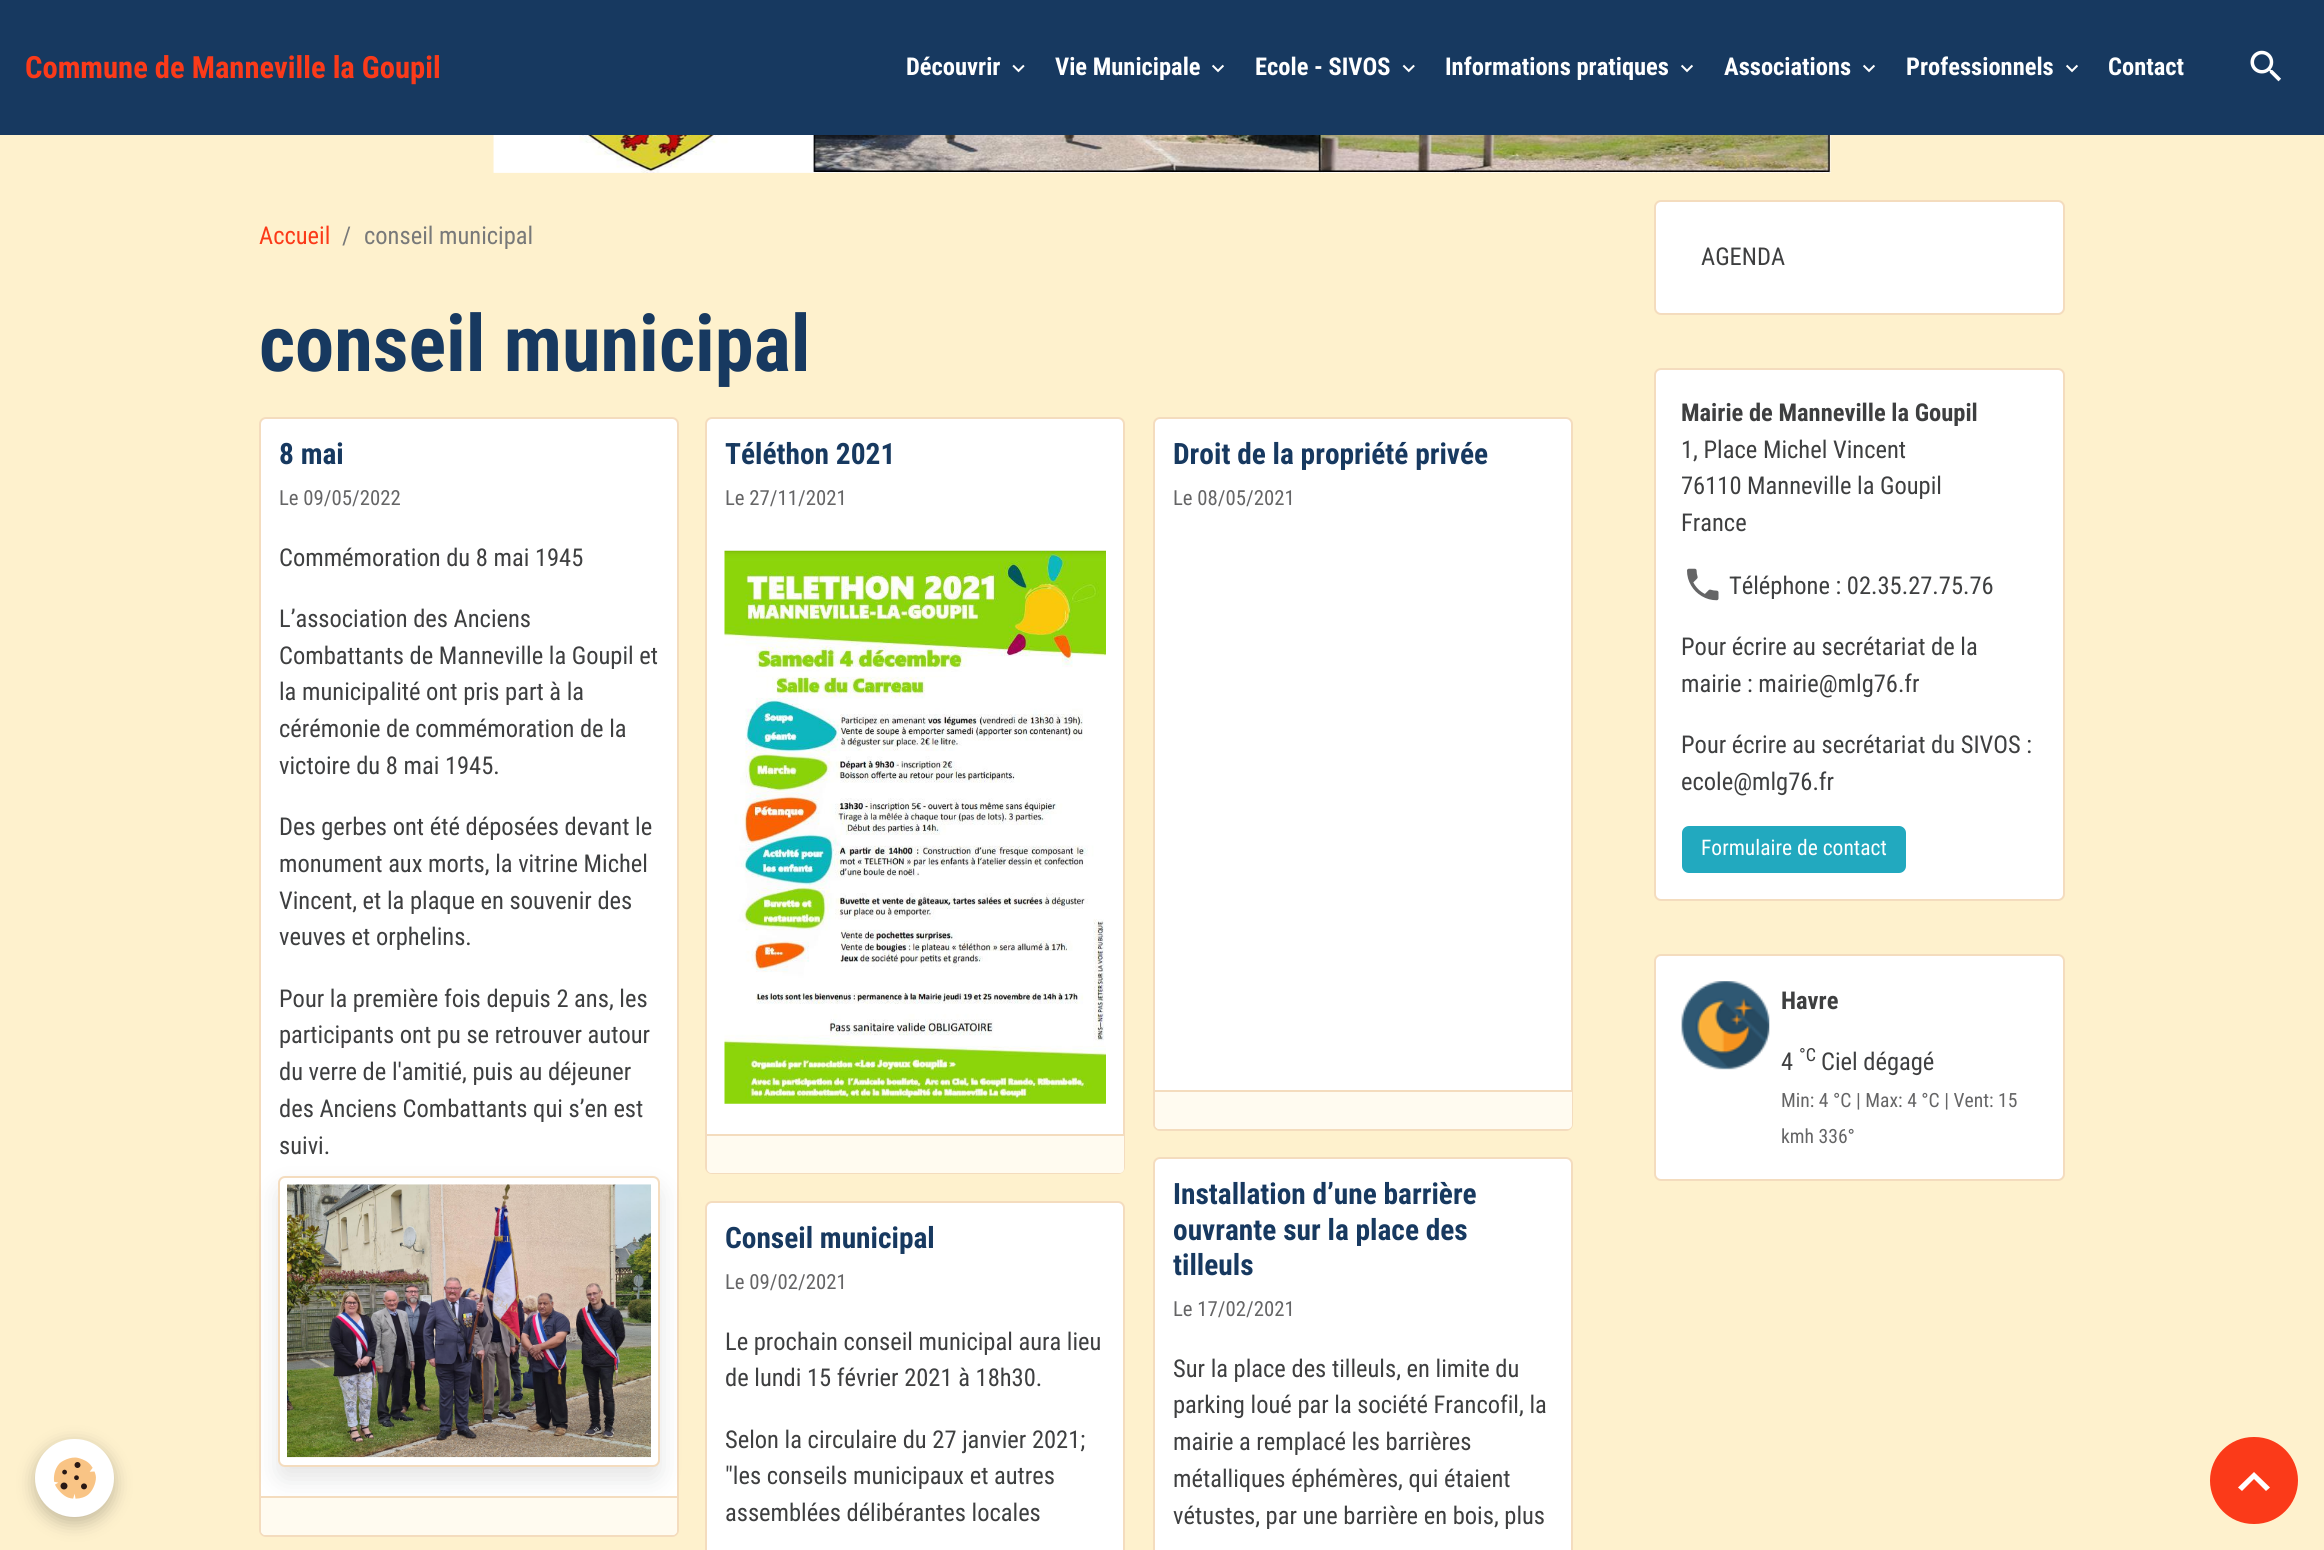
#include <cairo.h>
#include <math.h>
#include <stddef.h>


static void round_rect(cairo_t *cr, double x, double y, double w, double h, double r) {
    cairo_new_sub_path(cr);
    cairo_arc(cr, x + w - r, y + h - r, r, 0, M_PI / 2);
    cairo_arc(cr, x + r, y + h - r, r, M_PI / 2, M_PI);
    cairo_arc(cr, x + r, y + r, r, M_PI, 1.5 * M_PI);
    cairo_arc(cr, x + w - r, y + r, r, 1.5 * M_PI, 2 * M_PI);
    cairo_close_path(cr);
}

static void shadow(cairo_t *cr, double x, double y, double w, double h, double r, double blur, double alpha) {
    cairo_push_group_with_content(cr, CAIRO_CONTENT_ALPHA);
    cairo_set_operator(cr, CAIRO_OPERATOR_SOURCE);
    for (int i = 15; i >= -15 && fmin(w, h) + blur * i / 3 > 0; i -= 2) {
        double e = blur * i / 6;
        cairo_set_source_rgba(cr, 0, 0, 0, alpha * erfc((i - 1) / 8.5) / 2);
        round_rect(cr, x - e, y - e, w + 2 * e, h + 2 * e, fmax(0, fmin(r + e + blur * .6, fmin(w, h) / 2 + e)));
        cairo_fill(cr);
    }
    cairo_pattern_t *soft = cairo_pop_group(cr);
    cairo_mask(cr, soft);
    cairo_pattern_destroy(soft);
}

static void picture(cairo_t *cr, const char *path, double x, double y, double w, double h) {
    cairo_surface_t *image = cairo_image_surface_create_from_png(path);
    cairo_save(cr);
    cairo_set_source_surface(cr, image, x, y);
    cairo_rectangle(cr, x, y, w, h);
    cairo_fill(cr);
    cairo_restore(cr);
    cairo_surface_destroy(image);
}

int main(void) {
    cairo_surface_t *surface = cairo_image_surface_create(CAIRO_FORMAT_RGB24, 2324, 1550);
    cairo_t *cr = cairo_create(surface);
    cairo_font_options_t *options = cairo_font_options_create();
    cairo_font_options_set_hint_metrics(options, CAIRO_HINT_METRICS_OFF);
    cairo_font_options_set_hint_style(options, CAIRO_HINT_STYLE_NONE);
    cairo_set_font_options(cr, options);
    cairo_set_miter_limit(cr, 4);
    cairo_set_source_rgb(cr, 0.996, 0.945, 0.804);
    cairo_paint(cr);
    cairo_set_source_rgb(cr, 0.09, 0.224, 0.376);
    cairo_rectangle(cr, 0, 0, 2324, 135);
    cairo_fill(cr);
    cairo_select_font_face(cr, "Roboto Condensed", CAIRO_FONT_SLANT_NORMAL, CAIRO_FONT_WEIGHT_BOLD);
    cairo_set_font_size(cr, 30.6);
    cairo_set_source_rgb(cr, 0.984, 0.227, 0.098);
    cairo_move_to(cr, 25, 78);
    cairo_show_text(cr, "Commune de Manneville la Goupil");
    cairo_set_font_size(cr, 24.5);
    cairo_set_source_rgb(cr, 1, 1, 1);
    cairo_move_to(cr, 906, 75);
    cairo_show_text(cr, "Découvrir");
    picture(cr, "img1.png", 1012, 64, 13, 9);
    cairo_move_to(cr, 1055, 75);
    cairo_show_text(cr, "Vie Municipale");
    picture(cr, "img2.png", 1212, 64, 12, 9);
    cairo_move_to(cr, 1255, 75);
    cairo_show_text(cr, "Ecole - SIVOS");
    picture(cr, "img3.png", 1402, 64, 13, 9);
    cairo_move_to(cr, 1445, 75);
    cairo_show_text(cr, "Informations pratiques");
    picture(cr, "img2.png", 1681, 64, 12, 9);
    cairo_move_to(cr, 1724, 75);
    cairo_show_text(cr, "Associations");
    picture(cr, "img2.png", 1863, 64, 12, 9);
    cairo_move_to(cr, 1906, 75);
    cairo_show_text(cr, "Professionnels");
    picture(cr, "img2.png", 2066, 64, 12, 9);
    cairo_move_to(cr, 2108, 75);
    cairo_show_text(cr, "Contact");
    picture(cr, "img4.png", 2250, 50, 31, 32);
    picture(cr, "img5.png", 493, 135, 1338, 38);
    cairo_set_source_rgb(cr, 0, 0, 0);
    shadow(cr, 35, 1444, 79, 79, 39.5, 9, 0.24);
    cairo_set_source_rgb(cr, 1, 1, 1);
    round_rect(cr, 35, 1439, 79, 78, 39);
    cairo_fill(cr);
    picture(cr, "img6.png", 53, 1457, 43, 42);
    cairo_select_font_face(cr, "Roboto Condensed", CAIRO_FONT_SLANT_NORMAL, CAIRO_FONT_WEIGHT_NORMAL);
    cairo_set_source_rgb(cr, 0.984, 0.227, 0.098);
    cairo_move_to(cr, 259, 244);
    cairo_show_text(cr, "Accueil");
    cairo_set_source_rgb(cr, 0.471, 0.475, 0.475);
    cairo_move_to(cr, 342, 244);
    cairo_show_text(cr, "/");
    cairo_move_to(cr, 364, 244);
    cairo_show_text(cr, "conseil municipal");
    cairo_select_font_face(cr, "Roboto Condensed", CAIRO_FONT_SLANT_NORMAL, CAIRO_FONT_WEIGHT_BOLD);
    cairo_set_font_size(cr, 78.5);
    cairo_set_source_rgb(cr, 0.09, 0.224, 0.376);
    cairo_move_to(cr, 259, 371);
    cairo_show_text(cr, "conseil municipal");
    cairo_set_source_rgb(cr, 1, 1, 1);
    round_rect(cr, 260, 418, 418, 1118, 6);
    cairo_fill_preserve(cr);
    cairo_set_source_rgb(cr, 0.957, 0.863, 0.745);
    cairo_stroke(cr);
    cairo_set_font_size(cr, 29.4);
    cairo_set_source_rgb(cr, 0.09, 0.224, 0.376);
    cairo_move_to(cr, 279, 464);
    cairo_show_text(cr, "8 mai");
    cairo_select_font_face(cr, "Roboto Condensed", CAIRO_FONT_SLANT_NORMAL, CAIRO_FONT_WEIGHT_NORMAL);
    cairo_set_font_size(cr, 20.75);
    cairo_set_source_rgb(cr, 0.396, 0.396, 0.4);
    cairo_move_to(cr, 279, 505);
    cairo_show_text(cr, "Le 09/05/2022");
    cairo_set_font_size(cr, 24.5);
    cairo_set_source_rgb(cr, 0.243, 0.247, 0.251);
    cairo_move_to(cr, 279, 566);
    cairo_show_text(cr, "Commémoration du 8 mai 1945");
    cairo_move_to(cr, 279, 627);
    cairo_show_text(cr, "L’association des Anciens");
    cairo_move_to(cr, 279, 664);
    cairo_show_text(cr, "Combattants de Manneville la Goupil et");
    cairo_move_to(cr, 279, 700);
    cairo_show_text(cr, "la municipalité ont pris part à la");
    cairo_move_to(cr, 279, 737);
    cairo_show_text(cr, "cérémonie de commémoration de la");
    cairo_move_to(cr, 279, 774);
    cairo_show_text(cr, "victoire du 8 mai 1945.");
    cairo_move_to(cr, 279, 835);
    cairo_show_text(cr, "Des gerbes ont été déposées devant le");
    cairo_move_to(cr, 279, 872);
    cairo_show_text(cr, "monument aux morts, la vitrine Michel");
    cairo_move_to(cr, 279, 909);
    cairo_show_text(cr, "Vincent, et la plaque en souvenir des");
    cairo_move_to(cr, 279, 945);
    cairo_show_text(cr, "veuves et orphelins.");
    cairo_move_to(cr, 279, 1007);
    cairo_show_text(cr, "Pour la première fois depuis 2 ans, les");
    cairo_move_to(cr, 279, 1043);
    cairo_show_text(cr, "participants ont pu se retrouver autour");
    cairo_move_to(cr, 279, 1080);
    cairo_show_text(cr, "du verre de l'amitié, puis au déjeuner");
    cairo_move_to(cr, 279, 1117);
    cairo_show_text(cr, "des Anciens Combattants qui s’en est");
    cairo_set_source_rgb(cr, 0.318, 0.322, 0.325);
    shadow(cr, 278, 1188, 382, 291, 7, 12, 0.15);
    cairo_set_source_rgb(cr, 0.243, 0.247, 0.251);
    cairo_move_to(cr, 279, 1154);
    cairo_show_text(cr, "suivi.");
    cairo_set_source_rgb(cr, 1, 1, 1);
    round_rect(cr, 279, 1177, 380, 289, 6);
    cairo_fill_preserve(cr);
    cairo_set_source_rgb(cr, 0.957, 0.863, 0.745);
    cairo_stroke(cr);
    picture(cr, "img7.png", 287, 1184, 364, 274);
    cairo_set_source_rgb(cr, 1, 0.984, 0.941);
    cairo_new_path(cr);
    cairo_move_to(cr, 261, 1496);
    cairo_line_to(cr, 677, 1496);
    cairo_line_to(cr, 677, 1531);
    cairo_curve_to(cr, 677, 1533, 675, 1535, 673, 1535);
    cairo_line_to(cr, 265, 1535);
    cairo_curve_to(cr, 263, 1535, 261, 1533, 261, 1531);
    cairo_close_path(cr);
    cairo_fill(cr);
    cairo_set_source_rgb(cr, 0.957, 0.863, 0.745);
    cairo_rectangle(cr, 261, 1496, 416, 2);
    cairo_fill(cr);
    cairo_set_source_rgb(cr, 1, 1, 1);
    round_rect(cr, 706, 418, 418, 755, 6);
    cairo_fill_preserve(cr);
    cairo_set_source_rgb(cr, 0.957, 0.863, 0.745);
    cairo_stroke(cr);
    cairo_select_font_face(cr, "Roboto Condensed", CAIRO_FONT_SLANT_NORMAL, CAIRO_FONT_WEIGHT_BOLD);
    cairo_set_font_size(cr, 29.4);
    cairo_set_source_rgb(cr, 0.09, 0.224, 0.376);
    cairo_move_to(cr, 725, 464);
    cairo_show_text(cr, "Téléthon 2021");
    cairo_select_font_face(cr, "Roboto Condensed", CAIRO_FONT_SLANT_NORMAL, CAIRO_FONT_WEIGHT_NORMAL);
    cairo_set_font_size(cr, 20.75);
    cairo_set_source_rgb(cr, 0.396, 0.396, 0.4);
    cairo_move_to(cr, 725, 505);
    cairo_show_text(cr, "Le 27/11/2021");
    picture(cr, "img8.png", 724, 550, 382, 554);
    cairo_set_source_rgb(cr, 1, 0.984, 0.941);
    cairo_new_path(cr);
    cairo_move_to(cr, 707, 1134);
    cairo_line_to(cr, 1124, 1134);
    cairo_line_to(cr, 1124, 1169);
    cairo_curve_to(cr, 1124, 1171, 1122, 1173, 1120, 1173);
    cairo_line_to(cr, 711, 1173);
    cairo_curve_to(cr, 709, 1173, 707, 1171, 707, 1169);
    cairo_close_path(cr);
    cairo_fill(cr);
    cairo_set_source_rgb(cr, 0.957, 0.863, 0.745);
    cairo_rectangle(cr, 707, 1134, 417, 2);
    cairo_fill(cr);
    cairo_set_source_rgb(cr, 1, 1, 1);
    round_rect(cr, 1154, 418, 418, 712, 6);
    cairo_fill_preserve(cr);
    cairo_set_source_rgb(cr, 0.957, 0.863, 0.745);
    cairo_stroke(cr);
    cairo_select_font_face(cr, "Roboto Condensed", CAIRO_FONT_SLANT_NORMAL, CAIRO_FONT_WEIGHT_BOLD);
    cairo_set_font_size(cr, 29.4);
    cairo_set_source_rgb(cr, 0.09, 0.224, 0.376);
    cairo_move_to(cr, 1173, 464);
    cairo_show_text(cr, "Droit de la propriété privée");
    cairo_select_font_face(cr, "Roboto Condensed", CAIRO_FONT_SLANT_NORMAL, CAIRO_FONT_WEIGHT_NORMAL);
    cairo_set_font_size(cr, 20.75);
    cairo_set_source_rgb(cr, 0.396, 0.396, 0.4);
    cairo_move_to(cr, 1173, 505);
    cairo_show_text(cr, "Le 08/05/2021");
    cairo_set_source_rgb(cr, 1, 0.984, 0.941);
    cairo_new_path(cr);
    cairo_move_to(cr, 1155, 1090);
    cairo_line_to(cr, 1572, 1090);
    cairo_line_to(cr, 1572, 1125);
    cairo_curve_to(cr, 1572, 1127, 1570, 1129, 1568, 1129);
    cairo_line_to(cr, 1159, 1129);
    cairo_curve_to(cr, 1157, 1129, 1155, 1127, 1155, 1125);
    cairo_close_path(cr);
    cairo_fill(cr);
    cairo_set_source_rgb(cr, 0.957, 0.863, 0.745);
    cairo_rectangle(cr, 1155, 1090, 417, 2);
    cairo_fill(cr);
    cairo_set_source_rgb(cr, 1, 1, 1);
    round_rect(cr, 706, 1202, 418, 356, 6);
    cairo_fill_preserve(cr);
    cairo_set_source_rgb(cr, 0.957, 0.863, 0.745);
    cairo_stroke(cr);
    cairo_select_font_face(cr, "Roboto Condensed", CAIRO_FONT_SLANT_NORMAL, CAIRO_FONT_WEIGHT_BOLD);
    cairo_set_font_size(cr, 29.4);
    cairo_set_source_rgb(cr, 0.09, 0.224, 0.376);
    cairo_move_to(cr, 725, 1248);
    cairo_show_text(cr, "Conseil municipal");
    cairo_select_font_face(cr, "Roboto Condensed", CAIRO_FONT_SLANT_NORMAL, CAIRO_FONT_WEIGHT_NORMAL);
    cairo_set_font_size(cr, 20.75);
    cairo_set_source_rgb(cr, 0.396, 0.396, 0.4);
    cairo_move_to(cr, 725, 1289);
    cairo_show_text(cr, "Le 09/02/2021");
    cairo_set_font_size(cr, 24.5);
    cairo_set_source_rgb(cr, 0.243, 0.247, 0.251);
    cairo_move_to(cr, 725, 1350);
    cairo_show_text(cr, "Le prochain conseil municipal aura lieu");
    cairo_move_to(cr, 725, 1386);
    cairo_show_text(cr, "de lundi 15 février 2021 à 18h30.");
    cairo_move_to(cr, 725, 1448);
    cairo_show_text(cr, "Selon la circulaire du 27 janvier 2021;");
    cairo_move_to(cr, 725, 1484);
    cairo_show_text(cr, "\"les conseils municipaux et autres");
    cairo_move_to(cr, 725, 1521);
    cairo_show_text(cr, "assemblées délibérantes locales");
    cairo_set_source_rgb(cr, 1, 1, 1);
    round_rect(cr, 1154, 1158, 418, 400, 6);
    cairo_fill_preserve(cr);
    cairo_set_source_rgb(cr, 0.957, 0.863, 0.745);
    cairo_stroke(cr);
    cairo_select_font_face(cr, "Roboto Condensed", CAIRO_FONT_SLANT_NORMAL, CAIRO_FONT_WEIGHT_BOLD);
    cairo_set_font_size(cr, 29.4);
    cairo_set_source_rgb(cr, 0.09, 0.224, 0.376);
    cairo_move_to(cr, 1173, 1204);
    cairo_show_text(cr, "Installation d’une barrière");
    cairo_move_to(cr, 1173, 1240);
    cairo_show_text(cr, "ouvrante sur la place des");
    cairo_move_to(cr, 1173, 1275);
    cairo_show_text(cr, "tilleuls");
    cairo_select_font_face(cr, "Roboto Condensed", CAIRO_FONT_SLANT_NORMAL, CAIRO_FONT_WEIGHT_NORMAL);
    cairo_set_font_size(cr, 20.75);
    cairo_set_source_rgb(cr, 0.396, 0.396, 0.4);
    cairo_move_to(cr, 1173, 1316);
    cairo_show_text(cr, "Le 17/02/2021");
    cairo_set_font_size(cr, 24.5);
    cairo_set_source_rgb(cr, 0.243, 0.247, 0.251);
    cairo_move_to(cr, 1173, 1377);
    cairo_show_text(cr, "Sur la place des tilleuls, en limite du");
    cairo_move_to(cr, 1173, 1413);
    cairo_show_text(cr, "parking loué par la société Francofil, la");
    cairo_move_to(cr, 1173, 1450);
    cairo_show_text(cr, "mairie a remplacé les barrières");
    cairo_move_to(cr, 1173, 1487);
    cairo_show_text(cr, "métalliques éphémères, qui étaient");
    cairo_move_to(cr, 1173, 1524);
    cairo_show_text(cr, "vétustes, par une barrière en bois, plus");
    cairo_set_source_rgb(cr, 1, 1, 1);
    round_rect(cr, 1655, 201, 409, 113, 6);
    cairo_fill_preserve(cr);
    cairo_set_source_rgb(cr, 0.957, 0.863, 0.745);
    cairo_stroke(cr);
    cairo_set_source_rgb(cr, 0.243, 0.247, 0.251);
    cairo_move_to(cr, 1701, 265);
    cairo_show_text(cr, "AGENDA");
    cairo_set_source_rgb(cr, 1, 1, 1);
    round_rect(cr, 1655, 369, 409, 531, 6);
    cairo_fill_preserve(cr);
    cairo_set_source_rgb(cr, 0.957, 0.863, 0.745);
    cairo_stroke(cr);
    cairo_select_font_face(cr, "Roboto Condensed", CAIRO_FONT_SLANT_NORMAL, CAIRO_FONT_WEIGHT_BOLD);
    cairo_set_source_rgb(cr, 0.243, 0.247, 0.251);
    cairo_move_to(cr, 1681, 421);
    cairo_show_text(cr, "Mairie de Manneville la Goupil");
    cairo_select_font_face(cr, "Roboto Condensed", CAIRO_FONT_SLANT_NORMAL, CAIRO_FONT_WEIGHT_NORMAL);
    cairo_move_to(cr, 1681, 458);
    cairo_show_text(cr, "1, Place Michel Vincent");
    cairo_move_to(cr, 1681, 494);
    cairo_show_text(cr, "76110 Manneville la Goupil");
    cairo_move_to(cr, 1681, 531);
    cairo_show_text(cr, "France");
    picture(cr, "img9.png", 1687, 568, 32, 33);
    cairo_move_to(cr, 1729, 594);
    cairo_show_text(cr, "Téléphone : 02.35.27.75.76");
    cairo_move_to(cr, 1681, 655);
    cairo_show_text(cr, "Pour écrire au secrétariat de la");
    cairo_move_to(cr, 1681, 692);
    cairo_show_text(cr, "mairie : mairie@mlg76.fr");
    cairo_move_to(cr, 1681, 753);
    cairo_show_text(cr, "Pour écrire au secrétariat du SIVOS :");
    cairo_move_to(cr, 1681, 790);
    cairo_show_text(cr, "ecole@mlg76.fr");
    cairo_set_source_rgb(cr, 0.133, 0.663, 0.749);
    round_rect(cr, 1683, 827, 222, 45, 6);
    cairo_fill_preserve(cr);
    cairo_stroke(cr);
    cairo_set_font_size(cr, 21.5);
    cairo_set_source_rgb(cr, 1, 1, 1);
    cairo_move_to(cr, 1701, 855);
    cairo_show_text(cr, "Formulaire de contact");
    round_rect(cr, 1655, 955, 409, 225, 6);
    cairo_fill_preserve(cr);
    cairo_set_source_rgb(cr, 0.957, 0.863, 0.745);
    cairo_stroke(cr);
    picture(cr, "img10.png", 1681, 981, 89, 89);
    cairo_select_font_face(cr, "Roboto Condensed", CAIRO_FONT_SLANT_NORMAL, CAIRO_FONT_WEIGHT_BOLD);
    cairo_set_font_size(cr, 24.5);
    cairo_set_source_rgb(cr, 0.243, 0.247, 0.251);
    cairo_move_to(cr, 1781, 1009);
    cairo_show_text(cr, "Havre");
    cairo_select_font_face(cr, "Roboto Condensed", CAIRO_FONT_SLANT_NORMAL, CAIRO_FONT_WEIGHT_NORMAL);
    cairo_move_to(cr, 1781, 1070);
    cairo_show_text(cr, "4");
    cairo_set_font_size(cr, 18);
    cairo_move_to(cr, 1799, 1061);
    cairo_show_text(cr, "°C");
    cairo_set_font_size(cr, 24.5);
    cairo_move_to(cr, 1821, 1070);
    cairo_show_text(cr, "Ciel dégagé");
    cairo_set_font_size(cr, 19.6);
    cairo_set_source_rgb(cr, 0.396, 0.396, 0.4);
    cairo_move_to(cr, 1781, 1107);
    cairo_show_text(cr, "Min: 4 °C | Max: 4 °C | Vent: 15");
    cairo_move_to(cr, 1781, 1143);
    cairo_show_text(cr, "kmh 336°");
    cairo_set_source_rgb(cr, 0.984, 0.227, 0.098);
    round_rect(cr, 2210, 1437, 88, 87, 43.5);
    cairo_fill(cr);
    cairo_set_source_rgb(cr, 1, 1, 1);
    cairo_new_path(cr);
    cairo_move_to(cr, 2254, 1472);
    cairo_line_to(cr, 2270, 1487.5);
    cairo_line_to(cr, 2266, 1491);
    cairo_line_to(cr, 2254, 1479);
    cairo_line_to(cr, 2242, 1491);
    cairo_line_to(cr, 2238, 1487.5);
    cairo_close_path(cr);
    cairo_fill(cr);
    cairo_surface_write_to_png(surface, "page.png");
    cairo_font_options_destroy(options);
    cairo_destroy(cr);
    cairo_surface_destroy(surface);
    return 0;
}
